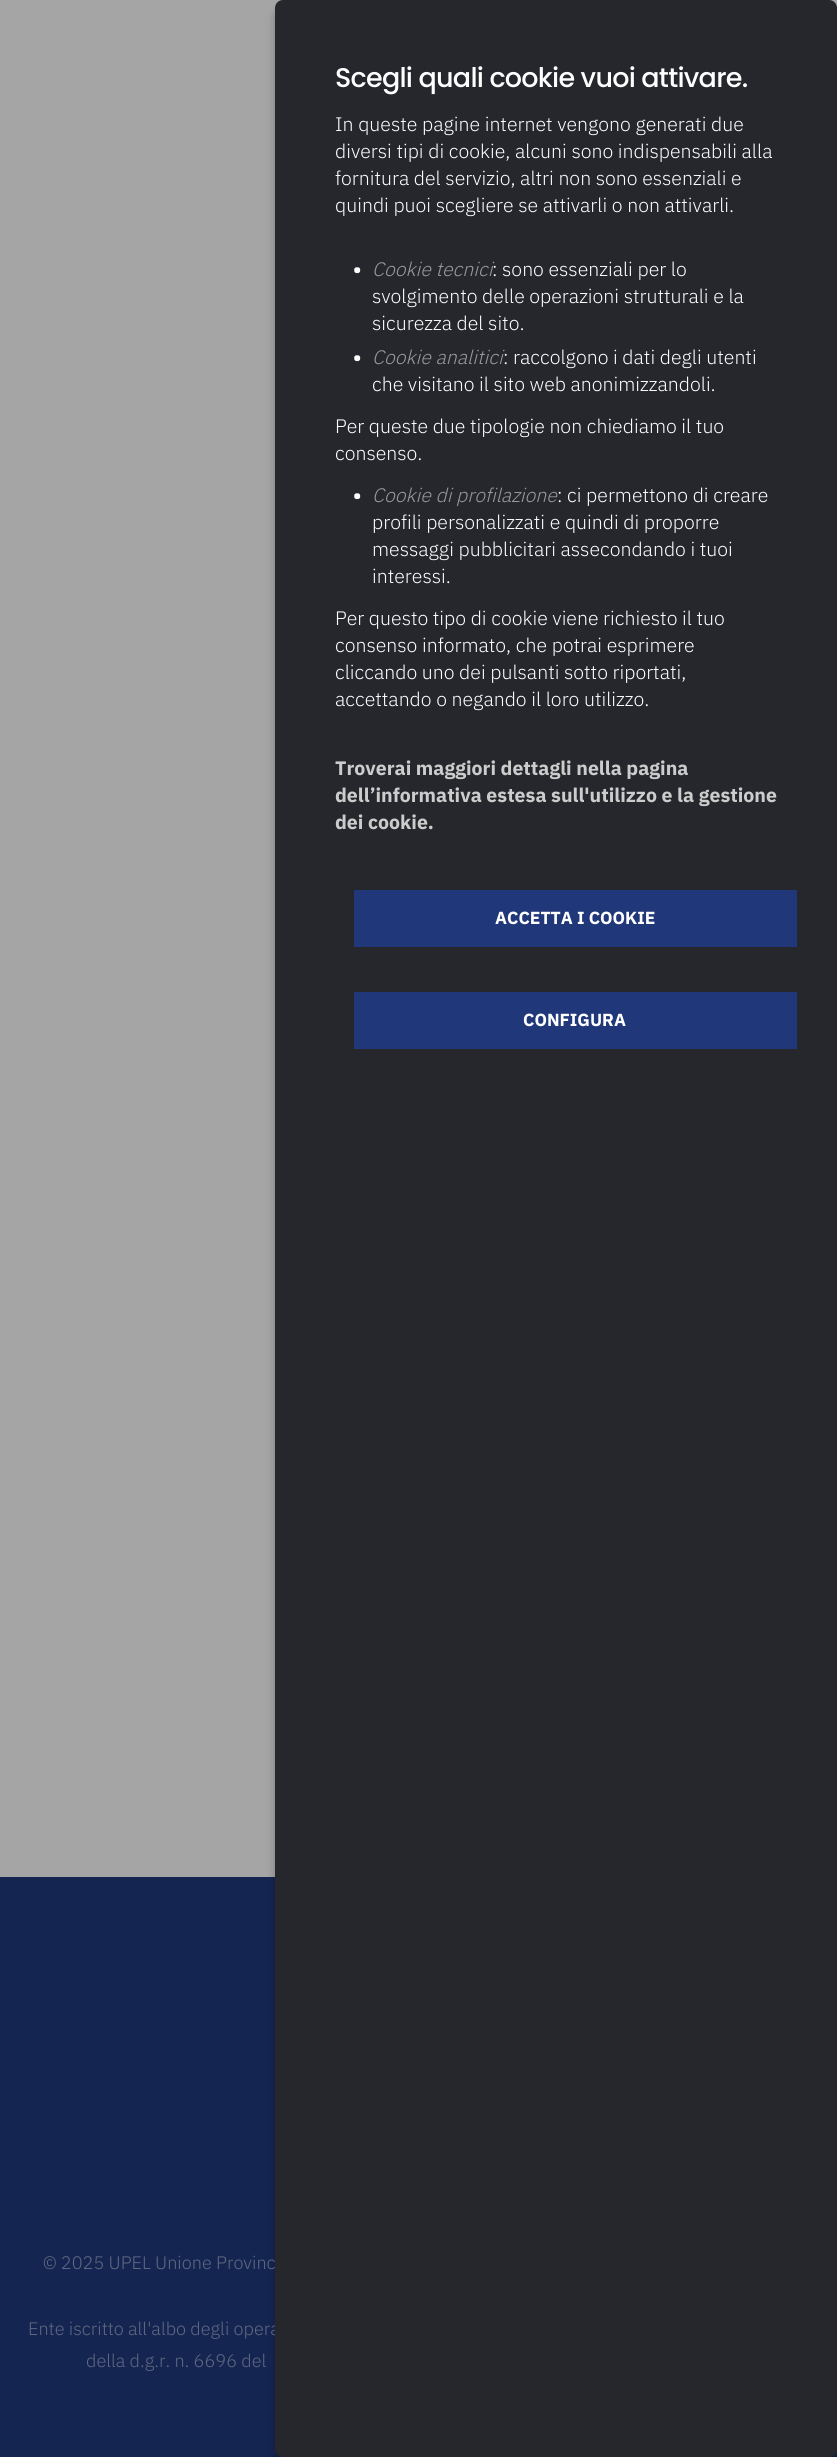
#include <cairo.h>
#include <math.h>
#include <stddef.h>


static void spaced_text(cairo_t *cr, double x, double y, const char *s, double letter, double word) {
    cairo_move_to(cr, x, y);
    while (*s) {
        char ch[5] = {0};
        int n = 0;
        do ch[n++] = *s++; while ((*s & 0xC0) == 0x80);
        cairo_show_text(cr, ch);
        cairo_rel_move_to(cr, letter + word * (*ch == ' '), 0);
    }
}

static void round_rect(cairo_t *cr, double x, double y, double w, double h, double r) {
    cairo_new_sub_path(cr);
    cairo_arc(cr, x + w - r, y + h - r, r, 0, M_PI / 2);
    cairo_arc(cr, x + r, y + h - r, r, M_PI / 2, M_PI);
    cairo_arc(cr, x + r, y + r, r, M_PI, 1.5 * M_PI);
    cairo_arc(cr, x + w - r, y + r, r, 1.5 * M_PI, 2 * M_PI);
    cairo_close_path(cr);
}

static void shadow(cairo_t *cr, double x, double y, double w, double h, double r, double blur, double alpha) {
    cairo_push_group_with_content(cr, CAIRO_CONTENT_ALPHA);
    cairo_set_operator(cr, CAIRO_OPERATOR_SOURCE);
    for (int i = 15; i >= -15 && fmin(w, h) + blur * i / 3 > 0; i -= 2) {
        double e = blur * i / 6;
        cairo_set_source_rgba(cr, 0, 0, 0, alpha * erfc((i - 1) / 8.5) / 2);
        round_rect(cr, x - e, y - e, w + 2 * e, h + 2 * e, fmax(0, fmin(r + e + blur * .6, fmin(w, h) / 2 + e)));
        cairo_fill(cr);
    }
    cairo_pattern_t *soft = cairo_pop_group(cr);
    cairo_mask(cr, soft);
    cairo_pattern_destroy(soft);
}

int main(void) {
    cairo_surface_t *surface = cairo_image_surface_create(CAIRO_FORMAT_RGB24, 837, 2457);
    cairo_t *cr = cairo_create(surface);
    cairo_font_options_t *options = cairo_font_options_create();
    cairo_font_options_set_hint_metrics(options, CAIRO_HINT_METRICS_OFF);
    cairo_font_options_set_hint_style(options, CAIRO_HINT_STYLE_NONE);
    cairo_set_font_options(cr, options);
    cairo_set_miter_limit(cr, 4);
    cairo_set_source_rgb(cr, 0.647, 0.647, 0.647);
    cairo_paint(cr);
    cairo_set_source_rgb(cr, 0.082, 0.145, 0.322);
    cairo_rectangle(cr, 0, 1877, 837, 580);
    cairo_fill(cr);
    cairo_set_source_rgb(cr, 0, 0, 0);
    shadow(cr, 275, 9, 562, 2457, 8, 4.5, 0.25);
    cairo_select_font_face(cr, "IBM Plex Sans Light", CAIRO_FONT_SLANT_NORMAL, CAIRO_FONT_WEIGHT_NORMAL);
    cairo_set_font_size(cr, 18.1);
    cairo_set_source_rgb(cr, 0.376, 0.408, 0.498);
    cairo_move_to(cr, 28, 2335);
    cairo_show_text(cr, "Ente iscritto all'albo degli opera");
    cairo_set_source_rgb(cr, 0.145, 0.153, 0.173);
    round_rect(cr, 275, 0, 562, 2457, 8);
    cairo_fill(cr);
    cairo_select_font_face(cr, "Poppins Medium", CAIRO_FONT_SLANT_NORMAL, CAIRO_FONT_WEIGHT_NORMAL);
    cairo_set_font_size(cr, 27);
    cairo_set_source_rgb(cr, 1, 1, 1);
    spaced_text(cr, 335, 87, "Scegli quali cookie vuoi attivare.", -0.75, 0);
    cairo_select_font_face(cr, "IBM Plex Sans Light", CAIRO_FONT_SLANT_NORMAL, CAIRO_FONT_WEIGHT_NORMAL);
    cairo_set_font_size(cr, 19.5);
    cairo_move_to(cr, 335, 131);
    cairo_show_text(cr, "In queste pagine internet vengono generati due");
    cairo_move_to(cr, 335, 158);
    cairo_show_text(cr, "diversi tipi di cookie, alcuni sono indispensabili alla");
    cairo_move_to(cr, 335, 185);
    cairo_show_text(cr, "fornitura del servizio, altri non sono essenziali e");
    cairo_move_to(cr, 335, 212);
    cairo_show_text(cr, "quindi puoi scegliere se attivarli o non attivarli.");
    cairo_select_font_face(cr, "IBM Plex Sans", CAIRO_FONT_SLANT_NORMAL, CAIRO_FONT_WEIGHT_BOLD);
    cairo_move_to(cr, 353, 276);
    cairo_show_text(cr, "•");
    cairo_select_font_face(cr, "IBM Plex Sans Light", CAIRO_FONT_SLANT_ITALIC, CAIRO_FONT_WEIGHT_NORMAL);
    cairo_set_source_rgb(cr, 0.6, 0.6, 0.6);
    cairo_move_to(cr, 372, 276);
    cairo_show_text(cr, "Cookie tecnici");
    cairo_select_font_face(cr, "IBM Plex Sans Light", CAIRO_FONT_SLANT_NORMAL, CAIRO_FONT_WEIGHT_NORMAL);
    cairo_set_source_rgb(cr, 1, 1, 1);
    cairo_move_to(cr, 492, 276);
    cairo_show_text(cr, ": sono essenziali per lo");
    cairo_move_to(cr, 372, 303);
    cairo_show_text(cr, "svolgimento delle operazioni strutturali e la");
    cairo_move_to(cr, 372, 330);
    cairo_show_text(cr, "sicurezza del sito.");
    cairo_select_font_face(cr, "IBM Plex Sans", CAIRO_FONT_SLANT_NORMAL, CAIRO_FONT_WEIGHT_BOLD);
    cairo_move_to(cr, 353, 364);
    cairo_show_text(cr, "•");
    cairo_select_font_face(cr, "IBM Plex Sans Light", CAIRO_FONT_SLANT_ITALIC, CAIRO_FONT_WEIGHT_NORMAL);
    cairo_set_source_rgb(cr, 0.6, 0.6, 0.6);
    cairo_move_to(cr, 372, 364);
    cairo_show_text(cr, "Cookie analitici");
    cairo_select_font_face(cr, "IBM Plex Sans Light", CAIRO_FONT_SLANT_NORMAL, CAIRO_FONT_WEIGHT_NORMAL);
    cairo_set_source_rgb(cr, 1, 1, 1);
    cairo_move_to(cr, 503, 364);
    cairo_show_text(cr, ": raccolgono i dati degli utenti");
    cairo_move_to(cr, 372, 391);
    cairo_show_text(cr, "che visitano il sito web anonimizzandoli.");
    cairo_move_to(cr, 335, 433);
    cairo_show_text(cr, "Per queste due tipologie non chiediamo il tuo");
    cairo_move_to(cr, 335, 460);
    cairo_show_text(cr, "consenso.");
    cairo_select_font_face(cr, "IBM Plex Sans", CAIRO_FONT_SLANT_NORMAL, CAIRO_FONT_WEIGHT_BOLD);
    cairo_move_to(cr, 353, 502);
    cairo_show_text(cr, "•");
    cairo_select_font_face(cr, "IBM Plex Sans Light", CAIRO_FONT_SLANT_ITALIC, CAIRO_FONT_WEIGHT_NORMAL);
    cairo_set_source_rgb(cr, 0.6, 0.6, 0.6);
    cairo_move_to(cr, 372, 502);
    cairo_show_text(cr, "Cookie di profilazione");
    cairo_select_font_face(cr, "IBM Plex Sans Light", CAIRO_FONT_SLANT_NORMAL, CAIRO_FONT_WEIGHT_NORMAL);
    cairo_set_source_rgb(cr, 1, 1, 1);
    cairo_move_to(cr, 557, 502);
    cairo_show_text(cr, ": ci permettono di creare");
    cairo_move_to(cr, 372, 529);
    cairo_show_text(cr, "profili personalizzati e quindi di proporre");
    cairo_move_to(cr, 372, 556);
    cairo_show_text(cr, "messaggi pubblicitari assecondando i tuoi");
    cairo_move_to(cr, 372, 583);
    cairo_show_text(cr, "interessi.");
    cairo_move_to(cr, 335, 625);
    cairo_show_text(cr, "Per questo tipo di cookie viene richiesto il tuo");
    cairo_move_to(cr, 335, 652);
    cairo_show_text(cr, "consenso informato, che potrai esprimere");
    cairo_move_to(cr, 335, 679);
    cairo_show_text(cr, "cliccando uno dei pulsanti sotto riportati,");
    cairo_move_to(cr, 335, 706);
    cairo_show_text(cr, "accettando o negando il loro utilizzo.");
    cairo_select_font_face(cr, "IBM Plex Sans", CAIRO_FONT_SLANT_NORMAL, CAIRO_FONT_WEIGHT_BOLD);
    cairo_set_source_rgb(cr, 0.8, 0.8, 0.8);
    cairo_move_to(cr, 335, 775);
    cairo_show_text(cr, "Troverai maggiori dettagli nella pagina");
    cairo_move_to(cr, 335, 802);
    cairo_show_text(cr, "dell’informativa estesa sull'utilizzo e la gestione");
    cairo_move_to(cr, 335, 829);
    cairo_show_text(cr, "dei cookie.");
    cairo_set_source_rgb(cr, 0.125, 0.216, 0.478);
    cairo_rectangle(cr, 354, 890, 443, 57);
    cairo_fill(cr);
    cairo_set_font_size(cr, 17.5);
    cairo_set_source_rgb(cr, 1, 1, 1);
    cairo_move_to(cr, 495, 924);
    cairo_show_text(cr, "ACCETTA I COOKIE");
    cairo_set_source_rgb(cr, 0.125, 0.216, 0.478);
    cairo_rectangle(cr, 354, 992, 443, 57);
    cairo_fill(cr);
    cairo_set_source_rgb(cr, 1, 1, 1);
    cairo_move_to(cr, 523, 1026);
    cairo_show_text(cr, "CONFIGURA");
    cairo_select_font_face(cr, "IBM Plex Sans Light", CAIRO_FONT_SLANT_NORMAL, CAIRO_FONT_WEIGHT_NORMAL);
    cairo_set_font_size(cr, 18.1);
    cairo_set_source_rgb(cr, 0.376, 0.408, 0.498);
    cairo_move_to(cr, 43, 2269);
    cairo_show_text(cr, "© 2025 UPEL Unione Provinc");
    cairo_move_to(cr, 86, 2367);
    cairo_show_text(cr, "della d.g.r. n. 6696 del");
    cairo_surface_write_to_png(surface, "page.png");
    cairo_font_options_destroy(options);
    cairo_destroy(cr);
    cairo_surface_destroy(surface);
    return 0;
}
